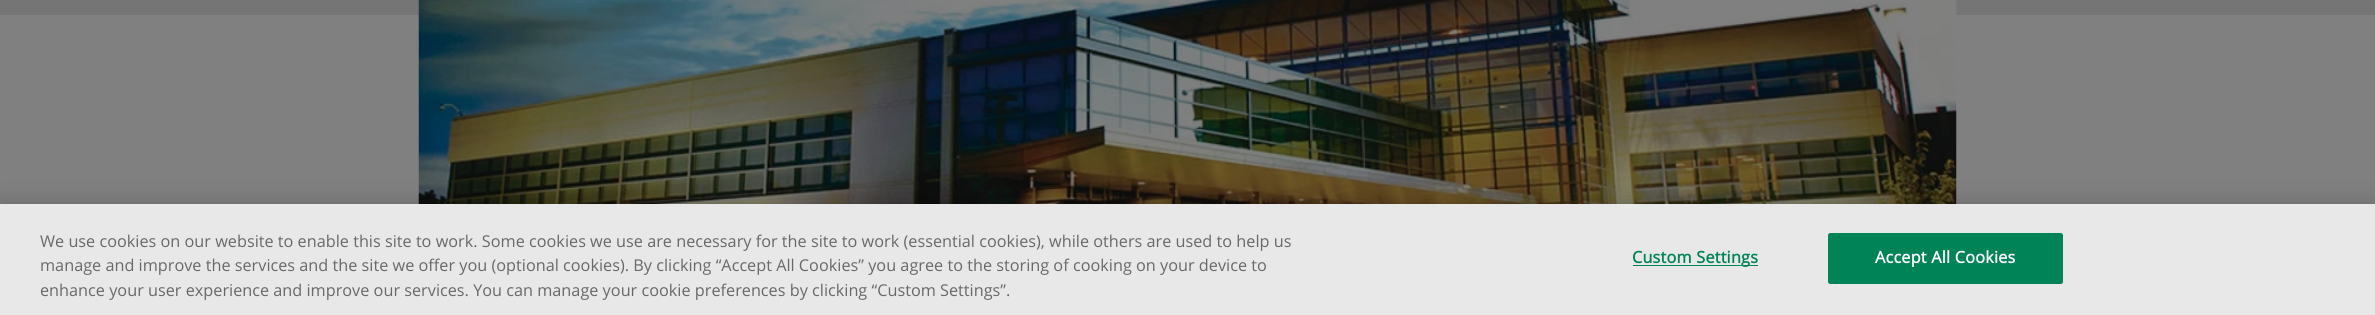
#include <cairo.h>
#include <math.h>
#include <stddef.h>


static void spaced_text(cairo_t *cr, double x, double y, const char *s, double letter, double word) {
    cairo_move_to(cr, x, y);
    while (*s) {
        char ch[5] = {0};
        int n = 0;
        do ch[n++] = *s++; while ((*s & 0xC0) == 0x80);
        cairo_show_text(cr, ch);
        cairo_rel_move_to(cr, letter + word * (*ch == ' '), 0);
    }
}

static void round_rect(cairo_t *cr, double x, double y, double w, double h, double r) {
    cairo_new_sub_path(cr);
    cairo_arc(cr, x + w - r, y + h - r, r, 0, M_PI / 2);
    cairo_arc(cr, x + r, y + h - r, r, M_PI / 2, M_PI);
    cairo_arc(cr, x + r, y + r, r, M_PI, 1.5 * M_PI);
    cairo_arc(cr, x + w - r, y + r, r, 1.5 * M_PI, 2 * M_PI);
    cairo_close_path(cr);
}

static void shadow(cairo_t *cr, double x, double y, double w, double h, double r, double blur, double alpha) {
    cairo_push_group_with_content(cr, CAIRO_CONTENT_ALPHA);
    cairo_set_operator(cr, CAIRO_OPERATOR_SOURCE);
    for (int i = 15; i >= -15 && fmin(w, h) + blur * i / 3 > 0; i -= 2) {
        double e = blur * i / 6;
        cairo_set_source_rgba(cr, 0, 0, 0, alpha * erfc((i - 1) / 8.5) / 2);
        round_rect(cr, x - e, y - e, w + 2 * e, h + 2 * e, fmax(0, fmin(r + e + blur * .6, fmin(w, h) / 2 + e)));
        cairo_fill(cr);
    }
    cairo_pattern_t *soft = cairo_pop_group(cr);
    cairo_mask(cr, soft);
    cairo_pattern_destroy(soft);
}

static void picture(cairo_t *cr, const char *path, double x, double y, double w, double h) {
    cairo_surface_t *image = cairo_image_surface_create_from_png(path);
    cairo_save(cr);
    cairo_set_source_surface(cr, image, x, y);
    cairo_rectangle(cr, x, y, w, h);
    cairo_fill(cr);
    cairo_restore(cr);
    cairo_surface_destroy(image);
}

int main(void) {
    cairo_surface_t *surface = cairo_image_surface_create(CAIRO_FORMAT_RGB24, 2375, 315);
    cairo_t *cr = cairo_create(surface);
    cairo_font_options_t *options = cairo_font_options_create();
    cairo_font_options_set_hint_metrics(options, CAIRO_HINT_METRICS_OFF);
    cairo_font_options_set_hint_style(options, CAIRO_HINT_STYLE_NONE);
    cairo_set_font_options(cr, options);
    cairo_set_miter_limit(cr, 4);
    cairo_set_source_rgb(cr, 0.502, 0.502, 0.502);
    cairo_paint(cr);
    cairo_set_source_rgb(cr, 0.459, 0.459, 0.459);
    cairo_rectangle(cr, 0, 0, 2375, 15);
    cairo_fill(cr);
    picture(cr, "img1.png", 418, 0, 1539, 204);
    cairo_set_source_rgb(cr, 0, 0, 0);
    shadow(cr, 0, 204, 2375, 111, 0, 11, 0.2);
    cairo_set_source_rgb(cr, 0.91, 0.91, 0.91);
    cairo_rectangle(cr, 0, 204, 2375, 111);
    cairo_fill(cr);
    cairo_select_font_face(cr, "Open Sans", CAIRO_FONT_SLANT_NORMAL, CAIRO_FONT_WEIGHT_NORMAL);
    cairo_set_font_size(cr, 16.25);
    cairo_set_source_rgb(cr, 0.412, 0.412, 0.412);
    cairo_move_to(cr, 40, 247);
    cairo_show_text(cr, "We use cookies on our website to enable this site to work. Some cookies we use are necessary for the site to work (essential cookies), while others are used to help us");
    cairo_move_to(cr, 40, 271);
    cairo_show_text(cr, "manage and improve the services and the site we offer you (optional cookies). By clicking “Accept All Cookies” you agree to the storing of cooking on your device to");
    cairo_move_to(cr, 40, 296);
    cairo_show_text(cr, "enhance your user experience and improve our services. You can manage your cookie preferences by clicking “Custom Settings”.");
    cairo_set_source_rgb(cr, 0, 0.518, 0.341);
    cairo_rectangle(cr, 1633, 265, 125, 1);
    cairo_fill(cr);
    cairo_select_font_face(cr, "Open Sans", CAIRO_FONT_SLANT_NORMAL, CAIRO_FONT_WEIGHT_BOLD);
    spaced_text(cr, 1632, 263, "Custom Settings", 0.2, 0);
    round_rect(cr, 1828.5, 233.5, 234, 50, 2);
    cairo_fill_preserve(cr);
    cairo_set_line_width(cr, 1);
    cairo_stroke(cr);
    cairo_set_source_rgb(cr, 1, 1, 1);
    spaced_text(cr, 1875, 263, "Accept All Cookies", 0.2, 0);
    cairo_surface_write_to_png(surface, "page.png");
    cairo_font_options_destroy(options);
    cairo_destroy(cr);
    cairo_surface_destroy(surface);
    return 0;
}
